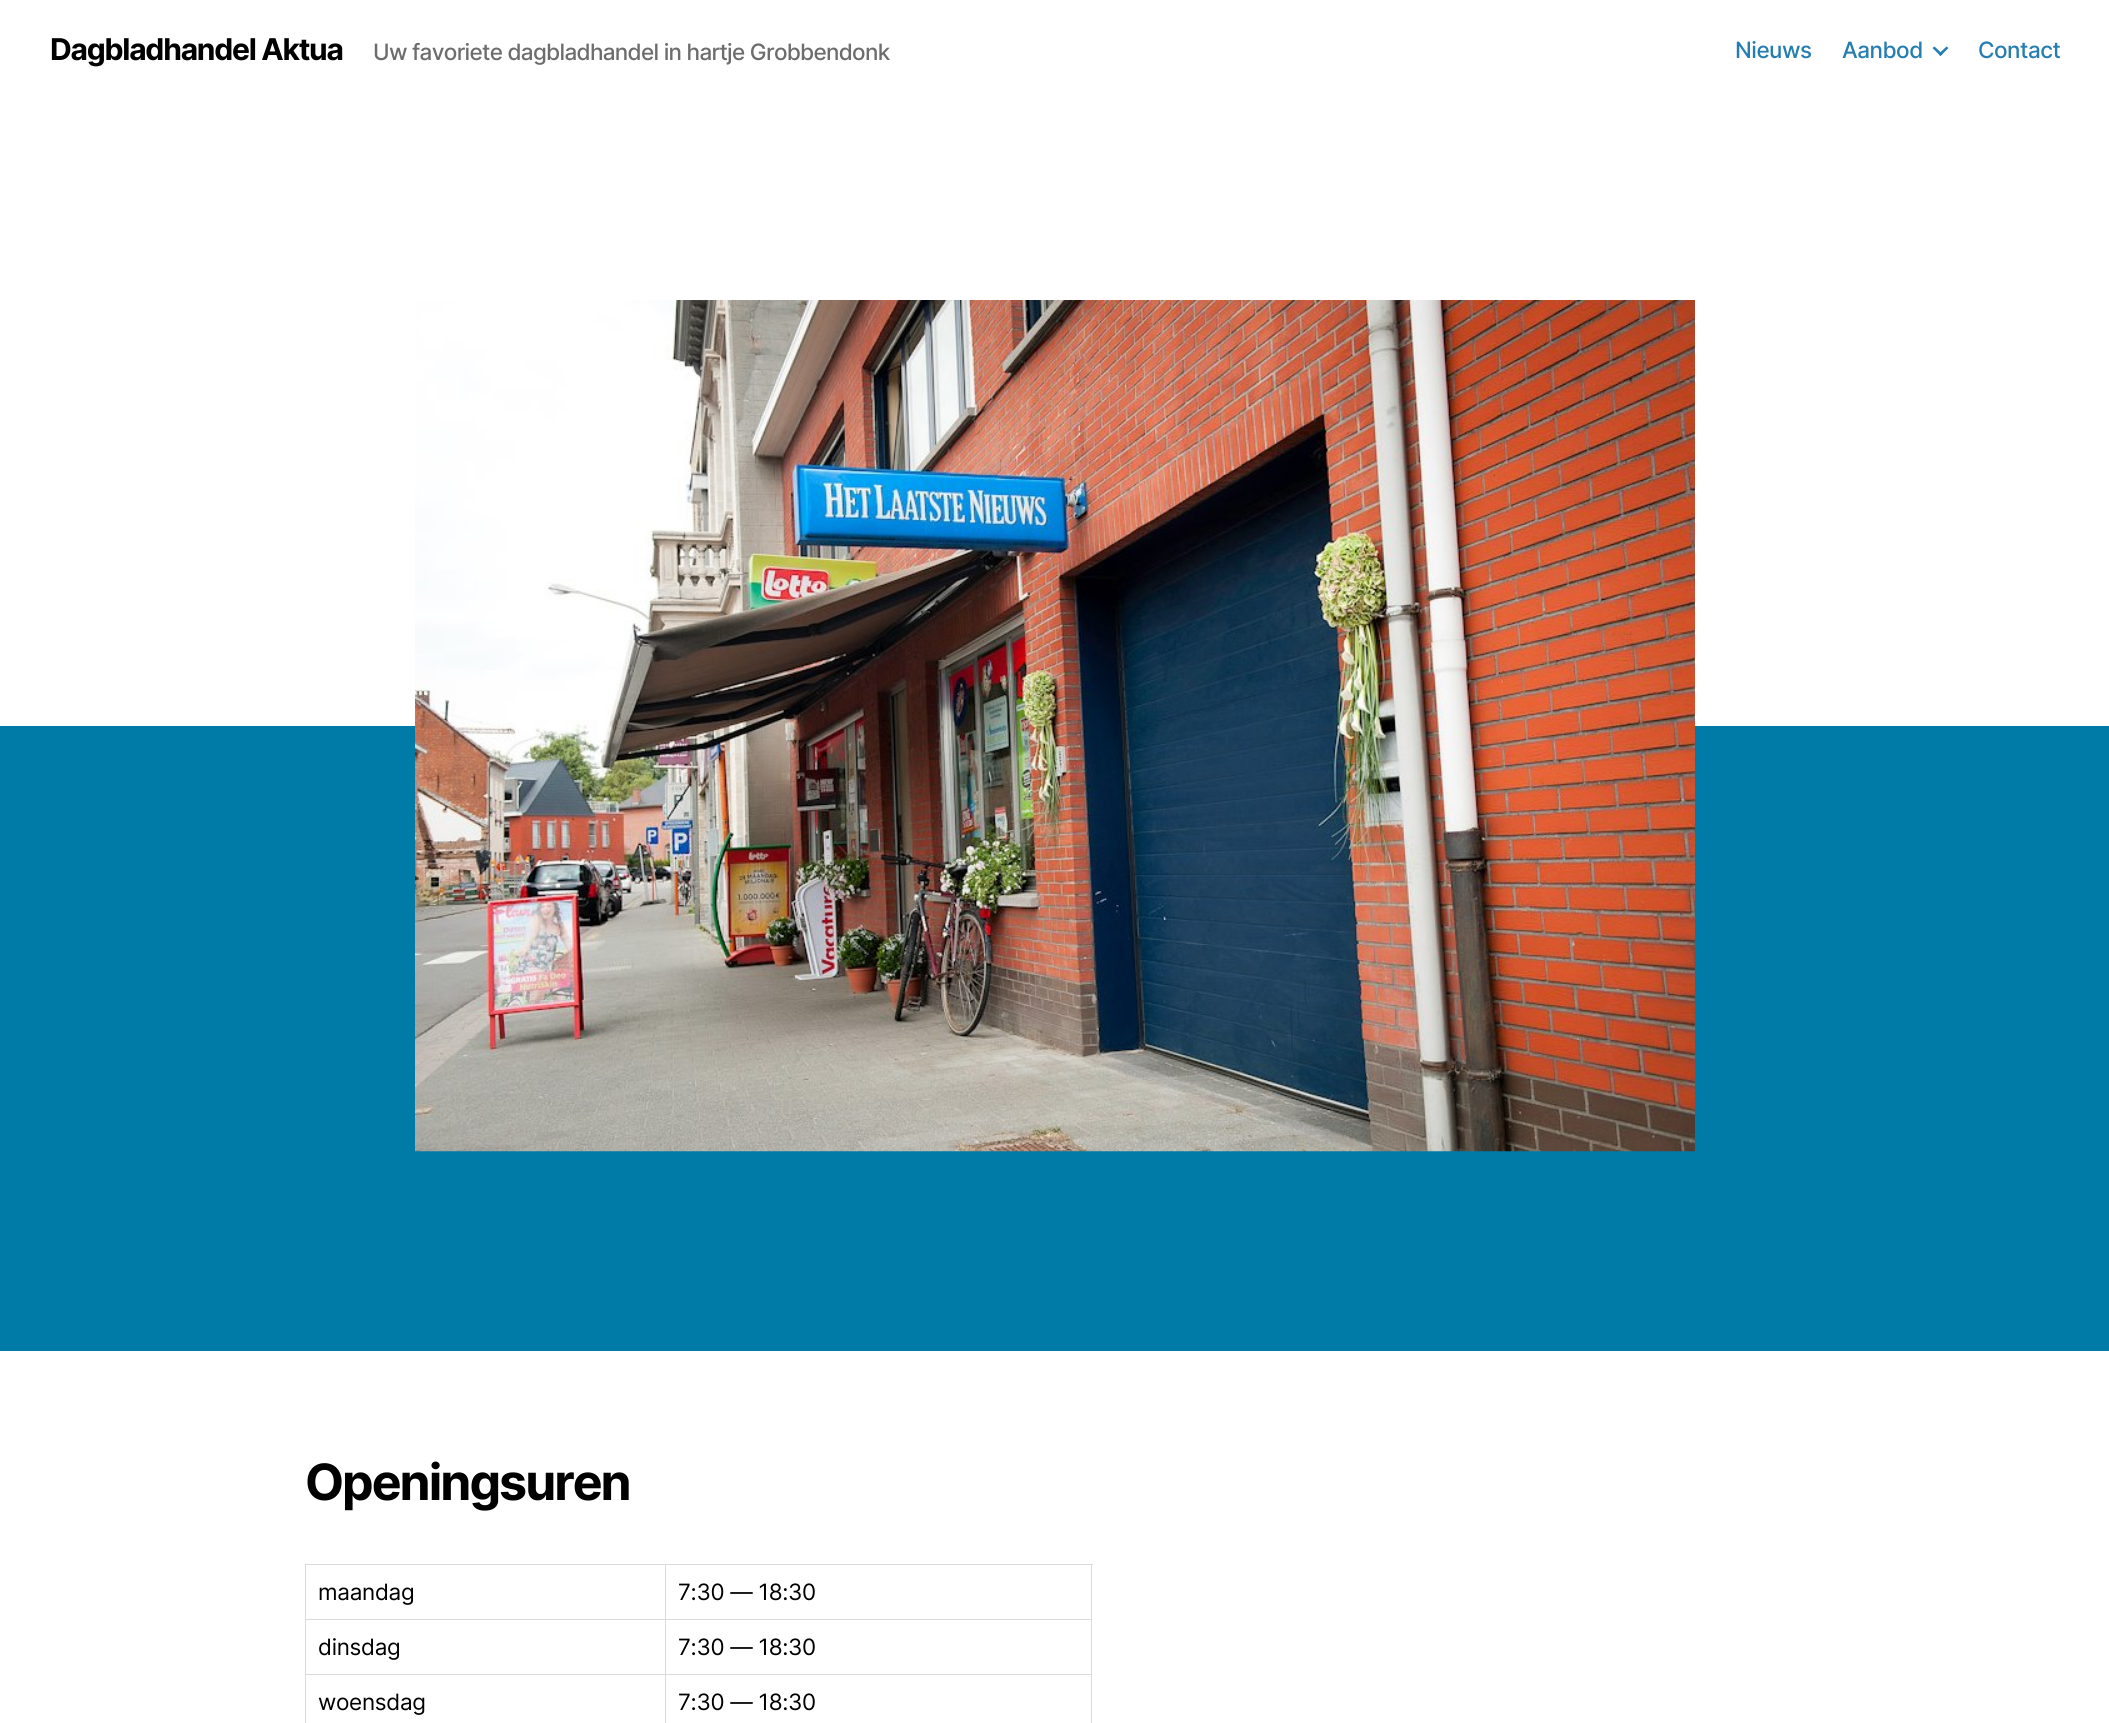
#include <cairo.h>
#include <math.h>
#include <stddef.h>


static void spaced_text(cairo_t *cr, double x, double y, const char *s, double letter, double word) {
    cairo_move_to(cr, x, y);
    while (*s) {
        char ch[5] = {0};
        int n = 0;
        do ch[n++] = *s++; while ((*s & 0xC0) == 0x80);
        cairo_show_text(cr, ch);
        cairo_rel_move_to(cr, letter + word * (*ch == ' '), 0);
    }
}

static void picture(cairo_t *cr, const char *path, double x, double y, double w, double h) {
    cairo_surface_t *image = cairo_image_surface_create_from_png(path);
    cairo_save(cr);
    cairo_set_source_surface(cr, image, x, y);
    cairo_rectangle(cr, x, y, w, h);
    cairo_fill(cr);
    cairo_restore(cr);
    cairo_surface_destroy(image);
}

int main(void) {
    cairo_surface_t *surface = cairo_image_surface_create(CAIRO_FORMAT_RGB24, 2109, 1723);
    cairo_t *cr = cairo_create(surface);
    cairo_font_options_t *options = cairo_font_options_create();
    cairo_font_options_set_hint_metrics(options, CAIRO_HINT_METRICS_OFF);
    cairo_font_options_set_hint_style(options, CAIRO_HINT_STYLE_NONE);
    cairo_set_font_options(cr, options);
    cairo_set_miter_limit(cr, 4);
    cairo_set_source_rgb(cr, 0, 0.482, 0.659);
    cairo_paint(cr);
    cairo_set_source_rgb(cr, 1, 1, 1);
    cairo_rectangle(cr, 0, 0, 2109, 726);
    cairo_fill(cr);
    picture(cr, "img1.png", 415, 300, 1280, 852);
    cairo_select_font_face(cr, "Inter", CAIRO_FONT_SLANT_NORMAL, CAIRO_FONT_WEIGHT_BOLD);
    cairo_set_font_size(cr, 30);
    cairo_set_source_rgb(cr, 0, 0, 0);
    spaced_text(cr, 50, 60, "Dagbladhandel Aktua", -1.25, 0);
    cairo_select_font_face(cr, "Inter Medium", CAIRO_FONT_SLANT_NORMAL, CAIRO_FONT_WEIGHT_NORMAL);
    cairo_set_font_size(cr, 22.5);
    cairo_set_source_rgb(cr, 0.427, 0.427, 0.427);
    spaced_text(cr, 373, 60, "Uw favoriete dagbladhandel in hartje Grobbendonk", -0.7, 0);
    cairo_set_source_rgb(cr, 0.145, 0.49, 0.69);
    spaced_text(cr, 1735, 58, "Nieuws", -0.5, 0);
    spaced_text(cr, 1842, 58, "Aanbod", -0.5, 0);
    cairo_new_path(cr);
    cairo_move_to(cr, 1932.5, 48);
    cairo_line_to(cr, 1934.5, 46.5);
    cairo_line_to(cr, 1942.5, 54);
    cairo_line_to(cr, 1940.5, 56);
    cairo_close_path(cr);
    cairo_fill(cr);
    cairo_new_path(cr);
    cairo_move_to(cr, 1938.5, 54);
    cairo_line_to(cr, 1946.5, 46.5);
    cairo_line_to(cr, 1948.5, 48);
    cairo_line_to(cr, 1940.5, 56);
    cairo_close_path(cr);
    cairo_fill(cr);
    spaced_text(cr, 1978, 58, "Contact", -0.5, 0);
    cairo_set_source_rgb(cr, 1, 1, 1);
    cairo_rectangle(cr, 0, 1351, 2109, 372);
    cairo_fill(cr);
    cairo_select_font_face(cr, "Inter", CAIRO_FONT_SLANT_NORMAL, CAIRO_FONT_WEIGHT_BOLD);
    cairo_set_font_size(cr, 50);
    cairo_set_source_rgb(cr, 0, 0, 0);
    spaced_text(cr, 305, 1500, "Openingsuren", -2, 0);
    cairo_set_source_rgb(cr, 0.859, 0.859, 0.859);
    cairo_rectangle(cr, 305, 1564, 788, 1);
    cairo_fill(cr);
    cairo_rectangle(cr, 1091, 1564, 1, 159);
    cairo_fill(cr);
    cairo_rectangle(cr, 305, 1564, 1, 159);
    cairo_fill(cr);
    cairo_select_font_face(cr, "Inter", CAIRO_FONT_SLANT_NORMAL, CAIRO_FONT_WEIGHT_NORMAL);
    cairo_set_font_size(cr, 22.5);
    cairo_set_source_rgb(cr, 0, 0, 0);
    spaced_text(cr, 318, 1600, "maandag", -0.3, 0);
    cairo_set_source_rgb(cr, 0.859, 0.859, 0.859);
    cairo_rectangle(cr, 665, 1619, 426, 1);
    cairo_fill(cr);
    cairo_rectangle(cr, 665, 1674, 426, 1);
    cairo_fill(cr);
    cairo_rectangle(cr, 665, 1674, 1, 49);
    cairo_fill(cr);
    cairo_rectangle(cr, 306, 1674, 360, 1);
    cairo_fill(cr);
    cairo_rectangle(cr, 665, 1619, 1, 56);
    cairo_fill(cr);
    cairo_rectangle(cr, 306, 1619, 360, 1);
    cairo_fill(cr);
    cairo_rectangle(cr, 665, 1565, 1, 55);
    cairo_fill(cr);
    cairo_set_source_rgb(cr, 0, 0, 0);
    spaced_text(cr, 678, 1600, "7:30 — 18:30", -0.3, 0);
    spaced_text(cr, 318, 1655, "dinsdag", -0.3, 0);
    spaced_text(cr, 678, 1655, "7:30 — 18:30", -0.3, 0);
    spaced_text(cr, 318, 1710, "woensdag", -0.3, 0);
    spaced_text(cr, 678, 1710, "7:30 — 18:30", -0.3, 0);
    cairo_surface_write_to_png(surface, "page.png");
    cairo_font_options_destroy(options);
    cairo_destroy(cr);
    cairo_surface_destroy(surface);
    return 0;
}
